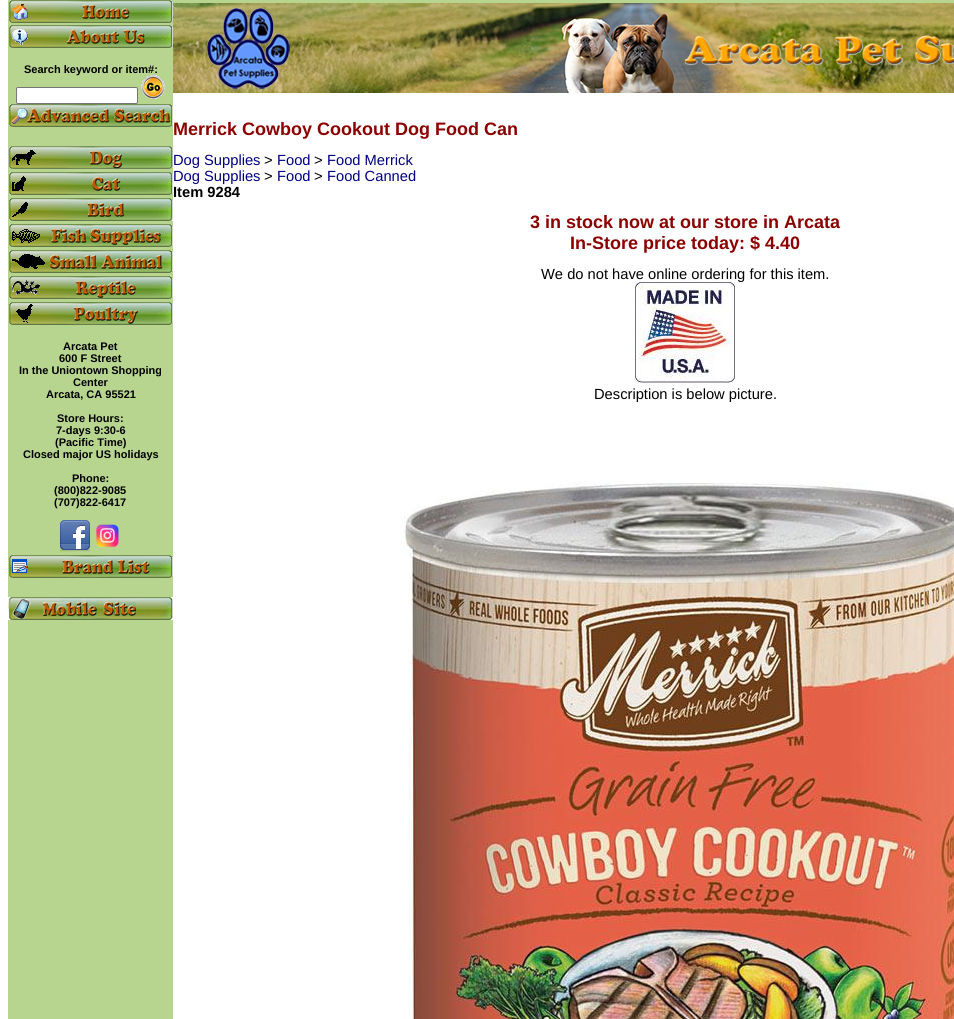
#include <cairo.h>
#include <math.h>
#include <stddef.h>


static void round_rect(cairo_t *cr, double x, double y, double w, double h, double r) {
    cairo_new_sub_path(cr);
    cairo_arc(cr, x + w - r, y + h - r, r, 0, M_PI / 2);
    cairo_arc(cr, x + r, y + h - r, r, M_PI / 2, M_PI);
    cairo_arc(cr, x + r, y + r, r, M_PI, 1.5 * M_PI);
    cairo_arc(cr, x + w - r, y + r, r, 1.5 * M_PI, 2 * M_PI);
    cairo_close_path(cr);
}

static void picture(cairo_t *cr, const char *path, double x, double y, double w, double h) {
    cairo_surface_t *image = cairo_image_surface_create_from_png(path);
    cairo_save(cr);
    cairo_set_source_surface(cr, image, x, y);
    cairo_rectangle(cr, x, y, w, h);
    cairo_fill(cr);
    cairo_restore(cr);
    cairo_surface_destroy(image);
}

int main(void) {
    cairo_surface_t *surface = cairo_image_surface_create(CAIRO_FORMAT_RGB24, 954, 1019);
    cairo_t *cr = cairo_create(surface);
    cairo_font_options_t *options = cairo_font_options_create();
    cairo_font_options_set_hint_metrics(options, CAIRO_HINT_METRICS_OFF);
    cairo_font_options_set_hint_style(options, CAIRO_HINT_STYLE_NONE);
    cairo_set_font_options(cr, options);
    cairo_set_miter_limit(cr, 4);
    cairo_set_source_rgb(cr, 1, 1, 1);
    cairo_paint(cr);
    cairo_set_source_rgb(cr, 0.718, 0.835, 0.557);
    cairo_rectangle(cr, 8, 0, 165, 1019);
    cairo_fill(cr);
    cairo_rectangle(cr, 172, 0, 782, 3);
    cairo_fill(cr);
    picture(cr, "img1.png", 9, 0, 164, 23);
    picture(cr, "img2.png", 9, 25, 164, 23);
    cairo_select_font_face(cr, "Liberation Sans", CAIRO_FONT_SLANT_NORMAL, CAIRO_FONT_WEIGHT_BOLD);
    cairo_set_font_size(cr, 11);
    cairo_set_source_rgb(cr, 0, 0, 0);
    cairo_move_to(cr, 24, 73);
    cairo_show_text(cr, "Search keyword or item#:");
    cairo_set_source_rgb(cr, 1, 1, 1);
    round_rect(cr, 16.5, 87.5, 121, 16, 1.5);
    cairo_fill_preserve(cr);
    cairo_set_source_rgb(cr, 0.463, 0.463, 0.463);
    cairo_set_line_width(cr, 1);
    cairo_stroke(cr);
    picture(cr, "img3.png", 141, 75, 24, 24);
    picture(cr, "img4.png", 9, 104, 164, 23);
    picture(cr, "img5.png", 8, 146, 165, 23);
    picture(cr, "img6.png", 9, 172, 164, 23);
    picture(cr, "img7.png", 9, 198, 164, 23);
    picture(cr, "img8.png", 9, 224, 164, 23);
    picture(cr, "img9.png", 9, 250, 164, 23);
    picture(cr, "img10.png", 9, 276, 164, 23);
    picture(cr, "img11.png", 9, 302, 164, 23);
    cairo_set_source_rgb(cr, 0, 0, 0);
    cairo_move_to(cr, 63, 350);
    cairo_show_text(cr, "Arcata Pet");
    cairo_move_to(cr, 59, 362);
    cairo_show_text(cr, "600 F Street");
    cairo_move_to(cr, 19, 374);
    cairo_show_text(cr, "In the Uniontown Shopping");
    cairo_move_to(cr, 73, 386);
    cairo_show_text(cr, "Center");
    cairo_move_to(cr, 46, 398);
    cairo_show_text(cr, "Arcata, CA 95521");
    cairo_move_to(cr, 57, 422);
    cairo_show_text(cr, "Store Hours:");
    cairo_move_to(cr, 56, 434);
    cairo_show_text(cr, "7-days 9:30-6");
    cairo_move_to(cr, 55, 446);
    cairo_show_text(cr, "(Pacific Time)");
    cairo_move_to(cr, 23, 458);
    cairo_show_text(cr, "Closed major US holidays");
    cairo_move_to(cr, 72, 482);
    cairo_show_text(cr, "Phone:");
    cairo_move_to(cr, 54, 494);
    cairo_show_text(cr, "(800)822-9085");
    cairo_move_to(cr, 54, 506);
    cairo_show_text(cr, "(707)822-6417");
    picture(cr, "img12.png", 59, 520, 32, 32);
    picture(cr, "img13.png", 96, 524, 23, 24);
    picture(cr, "img14.png", 9, 555, 164, 23);
    picture(cr, "img15.png", 8, 597, 165, 23);
    picture(cr, "img16.png", 173, 3, 781, 90);
    cairo_set_font_size(cr, 18);
    cairo_set_source_rgb(cr, 0.545, 0, 0);
    cairo_move_to(cr, 173, 135);
    cairo_show_text(cr, "Merrick Cowboy Cookout Dog Food Can");
    cairo_select_font_face(cr, "Liberation Sans", CAIRO_FONT_SLANT_NORMAL, CAIRO_FONT_WEIGHT_NORMAL);
    cairo_set_font_size(cr, 14.7);
    cairo_set_source_rgb(cr, 0, 0, 0.502);
    cairo_move_to(cr, 173, 165);
    cairo_show_text(cr, "Dog Supplies");
    cairo_set_source_rgb(cr, 0, 0, 0);
    cairo_move_to(cr, 264, 165);
    cairo_show_text(cr, ">");
    cairo_set_source_rgb(cr, 0, 0, 0.502);
    cairo_move_to(cr, 277, 165);
    cairo_show_text(cr, "Food");
    cairo_set_source_rgb(cr, 0, 0, 0);
    cairo_move_to(cr, 314, 165);
    cairo_show_text(cr, ">");
    cairo_set_source_rgb(cr, 0, 0, 0.502);
    cairo_move_to(cr, 327, 165);
    cairo_show_text(cr, "Food Merrick");
    cairo_move_to(cr, 173, 181);
    cairo_show_text(cr, "Dog Supplies");
    cairo_set_source_rgb(cr, 0, 0, 0);
    cairo_move_to(cr, 264, 181);
    cairo_show_text(cr, ">");
    cairo_set_source_rgb(cr, 0, 0, 0.502);
    cairo_move_to(cr, 277, 181);
    cairo_show_text(cr, "Food");
    cairo_set_source_rgb(cr, 0, 0, 0);
    cairo_move_to(cr, 314, 181);
    cairo_show_text(cr, ">");
    cairo_set_source_rgb(cr, 0, 0, 0.502);
    cairo_move_to(cr, 327, 181);
    cairo_show_text(cr, "Food Canned");
    cairo_select_font_face(cr, "Liberation Sans", CAIRO_FONT_SLANT_NORMAL, CAIRO_FONT_WEIGHT_BOLD);
    cairo_set_source_rgb(cr, 0, 0, 0);
    cairo_move_to(cr, 173, 197);
    cairo_show_text(cr, "Item 9284");
    cairo_set_font_size(cr, 18);
    cairo_set_source_rgb(cr, 0.545, 0, 0);
    cairo_move_to(cr, 530, 228);
    cairo_show_text(cr, "3 in stock now at our store in Arcata");
    cairo_move_to(cr, 570, 249);
    cairo_show_text(cr, "In-Store price today: $ 4.40");
    cairo_select_font_face(cr, "Liberation Sans", CAIRO_FONT_SLANT_NORMAL, CAIRO_FONT_WEIGHT_NORMAL);
    cairo_set_font_size(cr, 14.7);
    cairo_set_source_rgb(cr, 0, 0, 0);
    cairo_move_to(cr, 541, 279);
    cairo_show_text(cr, "We do not have online ordering for this item.");
    picture(cr, "img17.png", 635, 282, 100, 101);
    cairo_move_to(cr, 594, 399);
    cairo_show_text(cr, "Description is below picture.");
    picture(cr, "img18.png", 401, 402, 553, 617);
    cairo_surface_write_to_png(surface, "page.png");
    cairo_font_options_destroy(options);
    cairo_destroy(cr);
    cairo_surface_destroy(surface);
    return 0;
}
